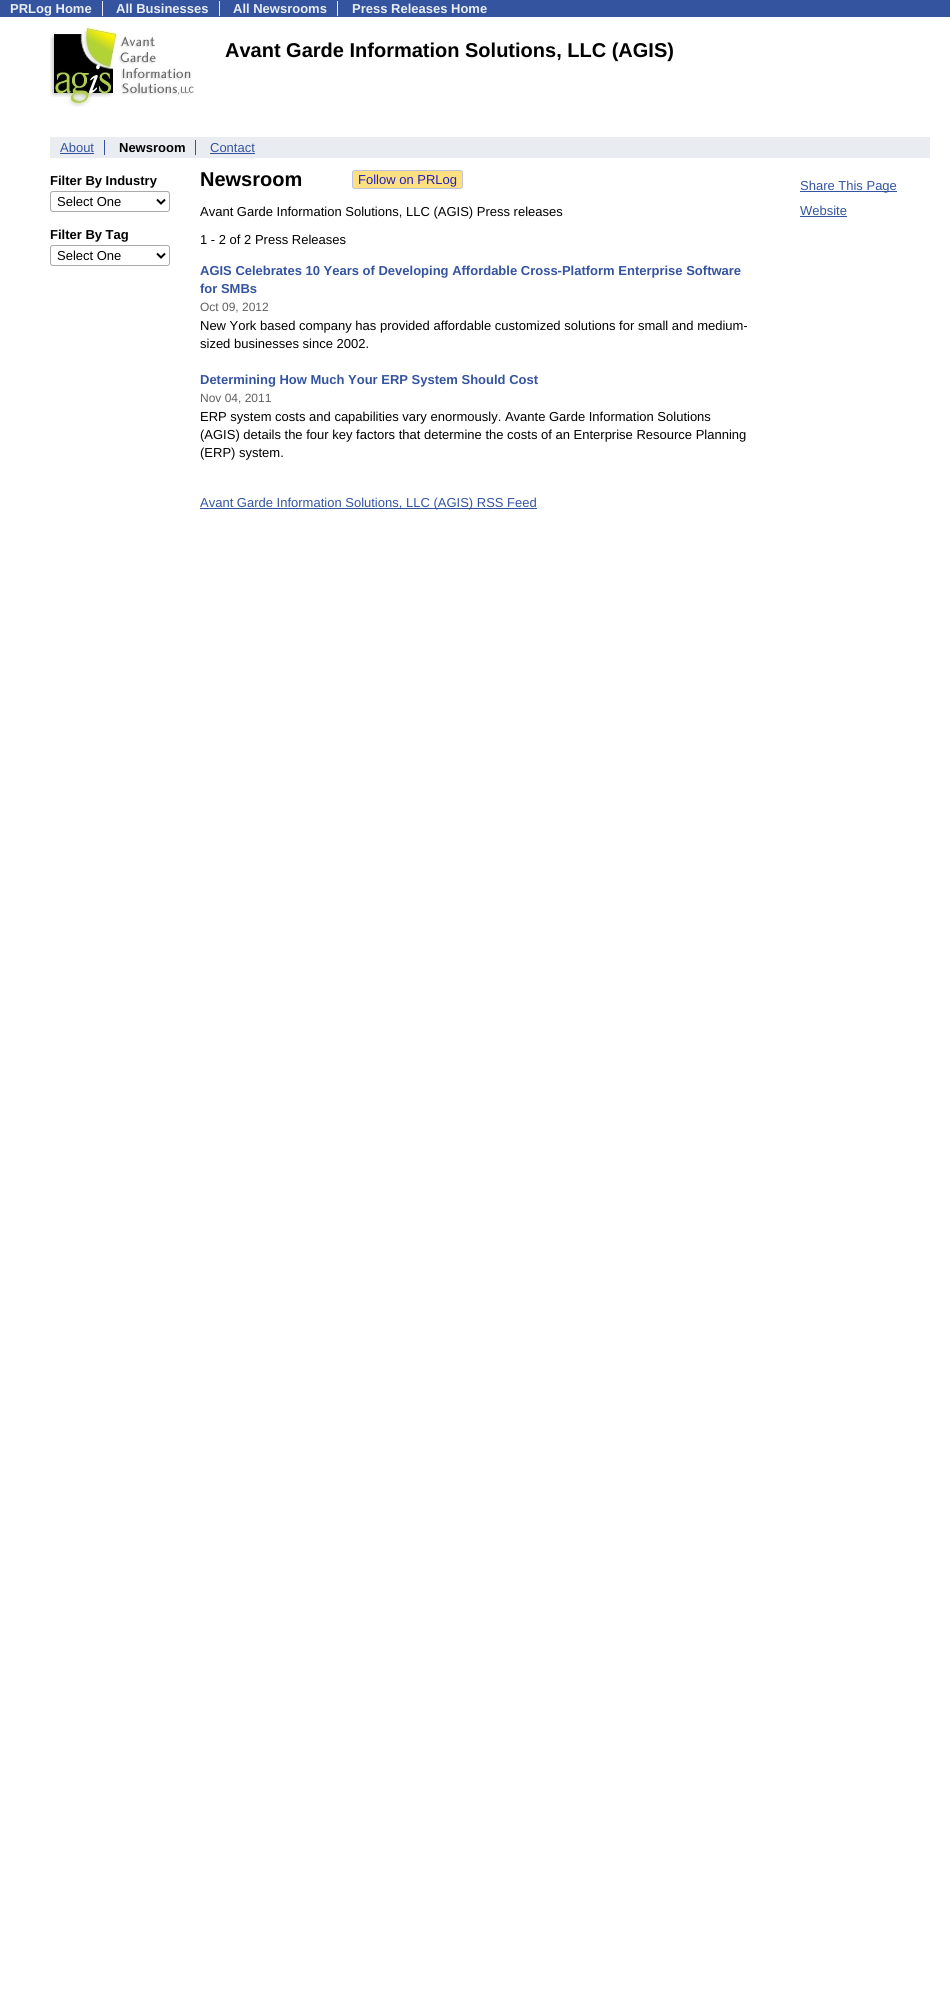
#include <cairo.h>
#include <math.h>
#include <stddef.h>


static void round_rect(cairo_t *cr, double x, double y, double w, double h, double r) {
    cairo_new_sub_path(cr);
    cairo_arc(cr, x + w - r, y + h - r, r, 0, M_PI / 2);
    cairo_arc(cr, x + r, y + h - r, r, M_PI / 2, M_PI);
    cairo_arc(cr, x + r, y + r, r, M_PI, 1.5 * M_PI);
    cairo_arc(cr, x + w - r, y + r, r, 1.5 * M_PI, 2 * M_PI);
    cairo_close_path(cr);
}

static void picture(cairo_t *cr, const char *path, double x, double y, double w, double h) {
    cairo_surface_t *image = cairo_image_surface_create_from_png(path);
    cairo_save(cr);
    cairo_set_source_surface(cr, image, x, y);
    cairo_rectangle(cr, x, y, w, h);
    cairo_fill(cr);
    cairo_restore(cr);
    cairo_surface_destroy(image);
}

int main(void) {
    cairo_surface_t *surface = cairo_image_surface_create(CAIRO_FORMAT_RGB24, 950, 1997);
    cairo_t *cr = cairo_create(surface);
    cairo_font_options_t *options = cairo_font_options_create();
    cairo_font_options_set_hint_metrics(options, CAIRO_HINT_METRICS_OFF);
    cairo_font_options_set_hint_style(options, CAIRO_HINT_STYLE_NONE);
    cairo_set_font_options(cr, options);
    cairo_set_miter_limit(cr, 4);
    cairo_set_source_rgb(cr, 1, 1, 1);
    cairo_paint(cr);
    cairo_set_source_rgb(cr, 0.204, 0.329, 0.627);
    cairo_rectangle(cr, 0, 0, 950, 17);
    cairo_fill(cr);
    cairo_set_source_rgb(cr, 0.914, 0.929, 0.949);
    cairo_rectangle(cr, 102, 1, 1, 15);
    cairo_fill(cr);
    cairo_select_font_face(cr, "Liberation Sans", CAIRO_FONT_SLANT_NORMAL, CAIRO_FONT_WEIGHT_BOLD);
    cairo_set_font_size(cr, 13);
    cairo_move_to(cr, 10, 13);
    cairo_show_text(cr, "PRLog Home");
    cairo_rectangle(cr, 219, 1, 1, 15);
    cairo_fill(cr);
    cairo_move_to(cr, 116, 13);
    cairo_show_text(cr, "All Businesses");
    cairo_rectangle(cr, 337, 1, 1, 15);
    cairo_fill(cr);
    cairo_move_to(cr, 233, 13);
    cairo_show_text(cr, "All Newsrooms");
    cairo_move_to(cr, 352, 13);
    cairo_show_text(cr, "Press Releases Home");
    picture(cr, "img1.png", 50, 27, 144, 80);
    cairo_set_font_size(cr, 20);
    cairo_set_source_rgb(cr, 0, 0, 0);
    cairo_move_to(cr, 225, 57);
    cairo_show_text(cr, "Avant Garde Information Solutions, LLC (AGIS)");
    cairo_set_source_rgb(cr, 0.914, 0.929, 0.949);
    cairo_rectangle(cr, 50, 137, 880, 21);
    cairo_fill(cr);
    cairo_set_source_rgb(cr, 0.204, 0.329, 0.627);
    cairo_rectangle(cr, 104, 140, 1, 15);
    cairo_fill(cr);
    cairo_select_font_face(cr, "Liberation Sans", CAIRO_FONT_SLANT_NORMAL, CAIRO_FONT_WEIGHT_NORMAL);
    cairo_set_font_size(cr, 13);
    cairo_move_to(cr, 60, 152);
    cairo_show_text(cr, "About");
    cairo_rectangle(cr, 60, 153, 34, 1);
    cairo_fill(cr);
    cairo_rectangle(cr, 195, 140, 1, 15);
    cairo_fill(cr);
    cairo_select_font_face(cr, "Liberation Sans", CAIRO_FONT_SLANT_NORMAL, CAIRO_FONT_WEIGHT_BOLD);
    cairo_set_source_rgb(cr, 0, 0, 0);
    cairo_move_to(cr, 119, 152);
    cairo_show_text(cr, "Newsroom");
    cairo_select_font_face(cr, "Liberation Sans", CAIRO_FONT_SLANT_NORMAL, CAIRO_FONT_WEIGHT_NORMAL);
    cairo_set_source_rgb(cr, 0.204, 0.329, 0.627);
    cairo_move_to(cr, 210, 152);
    cairo_show_text(cr, "Contact");
    cairo_rectangle(cr, 210, 153, 45, 1);
    cairo_fill(cr);
    cairo_select_font_face(cr, "Liberation Sans", CAIRO_FONT_SLANT_NORMAL, CAIRO_FONT_WEIGHT_BOLD);
    cairo_set_source_rgb(cr, 0, 0, 0);
    cairo_move_to(cr, 50, 185);
    cairo_show_text(cr, "Filter By Industry");
    round_rect(cr, 50.5, 191.5, 119, 20, 2.5);
    cairo_set_source_rgb(cr, 0.667, 0.667, 0.667);
    cairo_set_line_width(cr, 1);
    cairo_stroke(cr);
    cairo_new_path(cr);
    cairo_move_to(cr, 157, 199.5);
    cairo_line_to(cr, 161, 203.5);
    cairo_line_to(cr, 165, 199.5);
    cairo_set_source_rgb(cr, 0, 0, 0);
    cairo_set_line_width(cr, 2);
    cairo_stroke(cr);
    cairo_select_font_face(cr, "Liberation Sans", CAIRO_FONT_SLANT_NORMAL, CAIRO_FONT_WEIGHT_NORMAL);
    cairo_move_to(cr, 57, 206);
    cairo_show_text(cr, "Select One");
    cairo_select_font_face(cr, "Liberation Sans", CAIRO_FONT_SLANT_NORMAL, CAIRO_FONT_WEIGHT_BOLD);
    cairo_move_to(cr, 50, 239);
    cairo_show_text(cr, "Filter By Tag");
    round_rect(cr, 50.5, 245.5, 119, 20, 2.5);
    cairo_set_source_rgb(cr, 0.667, 0.667, 0.667);
    cairo_set_line_width(cr, 1);
    cairo_stroke(cr);
    cairo_new_path(cr);
    cairo_move_to(cr, 157, 253.5);
    cairo_line_to(cr, 161, 257.5);
    cairo_line_to(cr, 165, 253.5);
    cairo_set_source_rgb(cr, 0, 0, 0);
    cairo_set_line_width(cr, 2);
    cairo_stroke(cr);
    cairo_select_font_face(cr, "Liberation Sans", CAIRO_FONT_SLANT_NORMAL, CAIRO_FONT_WEIGHT_NORMAL);
    cairo_move_to(cr, 57, 260);
    cairo_show_text(cr, "Select One");
    cairo_select_font_face(cr, "Liberation Sans", CAIRO_FONT_SLANT_NORMAL, CAIRO_FONT_WEIGHT_BOLD);
    cairo_set_font_size(cr, 20);
    cairo_move_to(cr, 200, 186);
    cairo_show_text(cr, "Newsroom");
    cairo_set_source_rgb(cr, 1, 0.878, 0.502);
    round_rect(cr, 352.5, 170.5, 110, 18, 2.5);
    cairo_fill_preserve(cr);
    cairo_set_source_rgb(cr, 0.753, 0.753, 0.878);
    cairo_set_line_width(cr, 1);
    cairo_stroke(cr);
    cairo_select_font_face(cr, "Liberation Sans", CAIRO_FONT_SLANT_NORMAL, CAIRO_FONT_WEIGHT_NORMAL);
    cairo_set_font_size(cr, 13);
    cairo_set_source_rgb(cr, 0.125, 0.125, 0.753);
    cairo_move_to(cr, 358, 184);
    cairo_show_text(cr, "Follow on PRLog");
    cairo_set_source_rgb(cr, 0, 0, 0);
    cairo_move_to(cr, 200, 216);
    cairo_show_text(cr, "Avant Garde Information Solutions, LLC (AGIS) Press releases");
    cairo_move_to(cr, 200, 244);
    cairo_show_text(cr, "1 - 2 of 2 Press Releases");
    cairo_select_font_face(cr, "Liberation Sans", CAIRO_FONT_SLANT_NORMAL, CAIRO_FONT_WEIGHT_BOLD);
    cairo_set_source_rgb(cr, 0.204, 0.329, 0.627);
    cairo_move_to(cr, 200, 275);
    cairo_show_text(cr, "AGIS Celebrates 10 Years of Developing Affordable Cross-Platform Enterprise Software");
    cairo_move_to(cr, 200, 293);
    cairo_show_text(cr, "for SMBs");
    cairo_select_font_face(cr, "Liberation Sans", CAIRO_FONT_SLANT_NORMAL, CAIRO_FONT_WEIGHT_NORMAL);
    cairo_set_font_size(cr, 12);
    cairo_set_source_rgb(cr, 0.376, 0.376, 0.376);
    cairo_move_to(cr, 200, 311);
    cairo_show_text(cr, "Oct 09, 2012");
    cairo_set_font_size(cr, 13);
    cairo_set_source_rgb(cr, 0, 0, 0);
    cairo_move_to(cr, 200, 330);
    cairo_show_text(cr, "New York based company has provided affordable customized solutions for small and medium-");
    cairo_move_to(cr, 200, 348);
    cairo_show_text(cr, "sized businesses since 2002.");
    cairo_select_font_face(cr, "Liberation Sans", CAIRO_FONT_SLANT_NORMAL, CAIRO_FONT_WEIGHT_BOLD);
    cairo_set_source_rgb(cr, 0.204, 0.329, 0.627);
    cairo_move_to(cr, 200, 384);
    cairo_show_text(cr, "Determining How Much Your ERP System Should Cost");
    cairo_select_font_face(cr, "Liberation Sans", CAIRO_FONT_SLANT_NORMAL, CAIRO_FONT_WEIGHT_NORMAL);
    cairo_set_font_size(cr, 12);
    cairo_set_source_rgb(cr, 0.376, 0.376, 0.376);
    cairo_move_to(cr, 200, 402);
    cairo_show_text(cr, "Nov 04, 2011");
    cairo_set_font_size(cr, 13);
    cairo_set_source_rgb(cr, 0, 0, 0);
    cairo_move_to(cr, 200, 421);
    cairo_show_text(cr, "ERP system costs and capabilities vary enormously. Avante Garde Information Solutions");
    cairo_move_to(cr, 200, 439);
    cairo_show_text(cr, "(AGIS) details the four key factors that determine the costs of an Enterprise Resource Planning");
    cairo_move_to(cr, 200, 457);
    cairo_show_text(cr, "(ERP) system.");
    cairo_set_source_rgb(cr, 0.204, 0.329, 0.627);
    cairo_rectangle(cr, 200, 508, 337, 1);
    cairo_fill(cr);
    cairo_move_to(cr, 200, 507);
    cairo_show_text(cr, "Avant Garde Information Solutions, LLC (AGIS) RSS Feed");
    cairo_rectangle(cr, 800, 191, 97, 1);
    cairo_fill(cr);
    cairo_move_to(cr, 800, 190);
    cairo_show_text(cr, "Share This Page");
    cairo_move_to(cr, 800, 215);
    cairo_show_text(cr, "Website");
    cairo_rectangle(cr, 800, 216, 47, 1);
    cairo_fill(cr);
    cairo_surface_write_to_png(surface, "page.png");
    cairo_font_options_destroy(options);
    cairo_destroy(cr);
    cairo_surface_destroy(surface);
    return 0;
}
